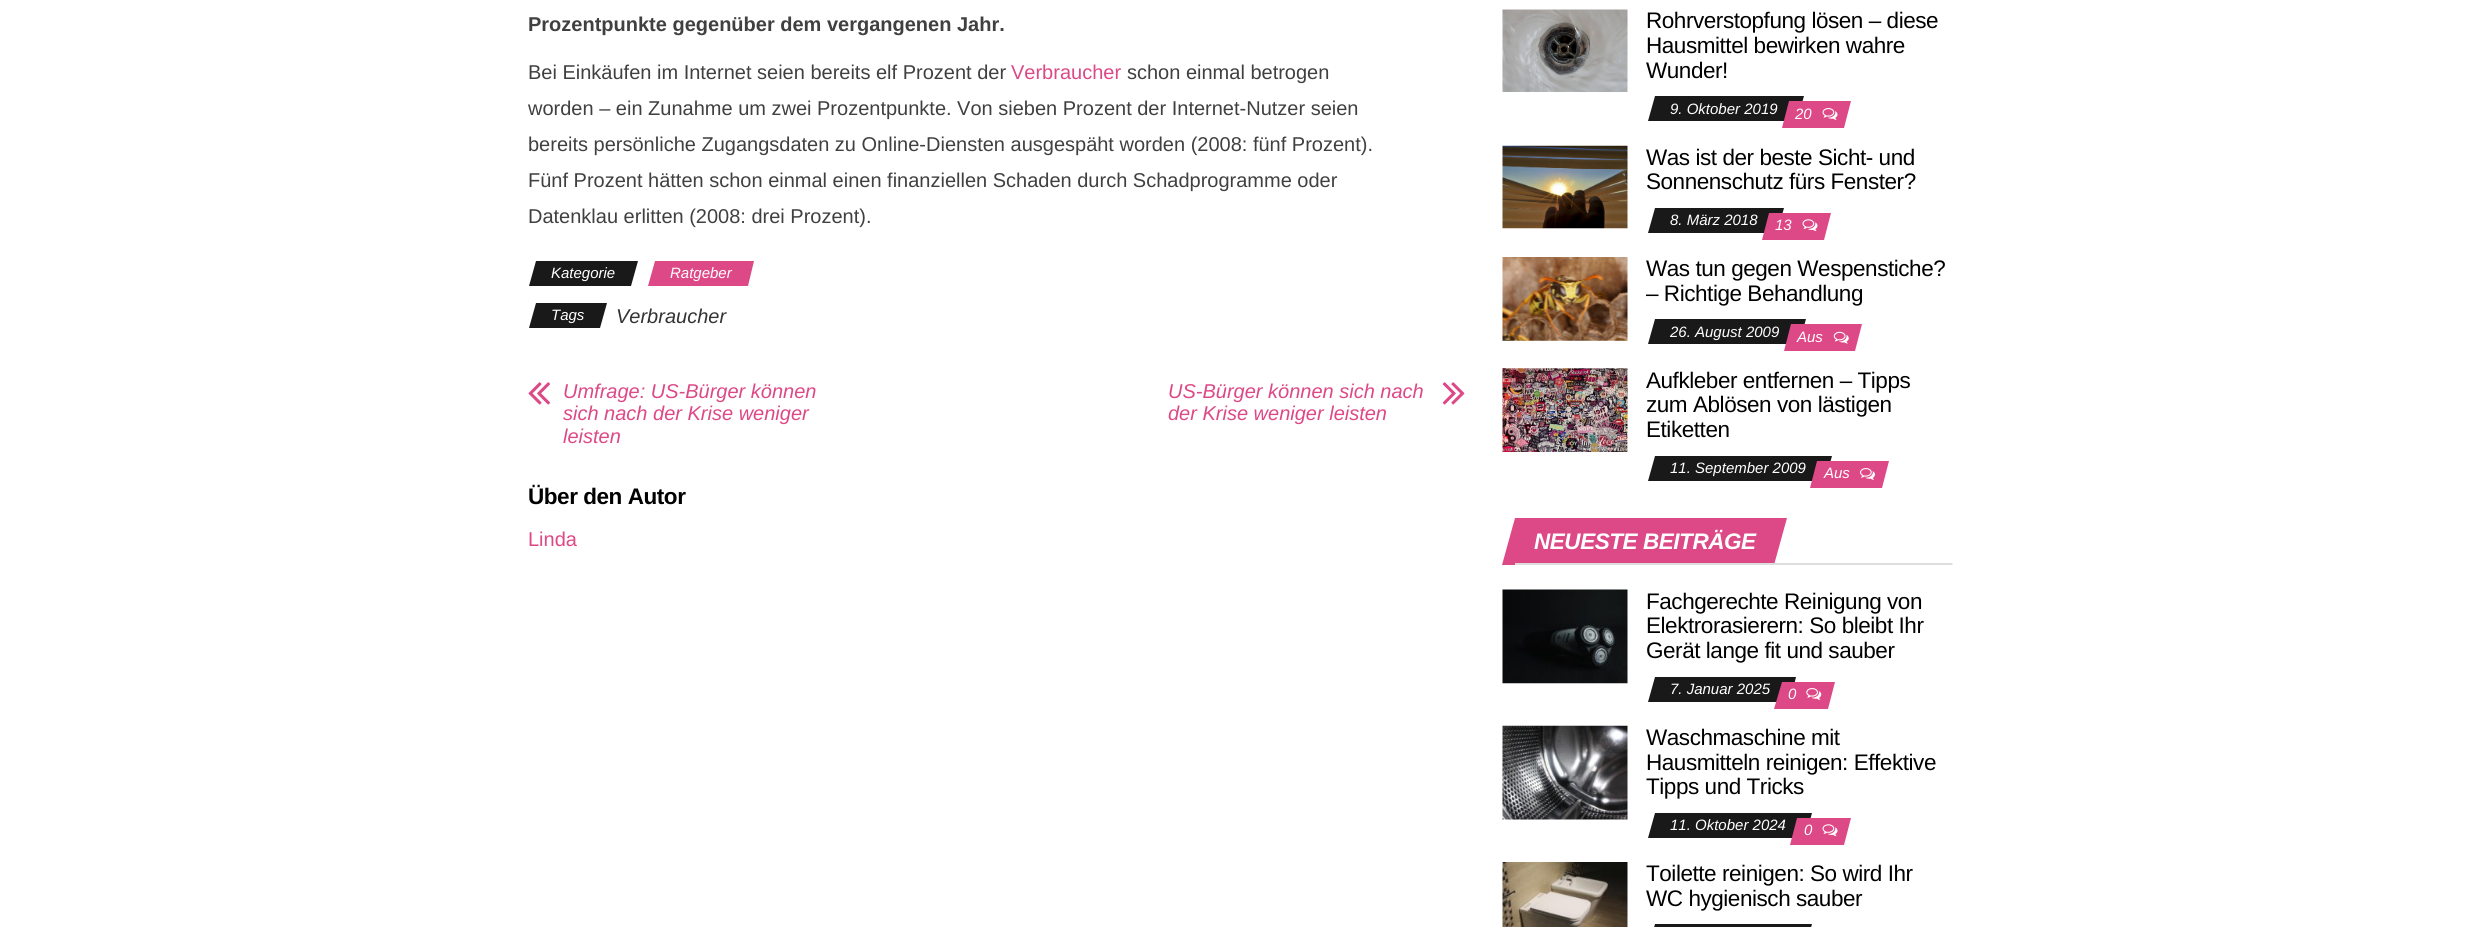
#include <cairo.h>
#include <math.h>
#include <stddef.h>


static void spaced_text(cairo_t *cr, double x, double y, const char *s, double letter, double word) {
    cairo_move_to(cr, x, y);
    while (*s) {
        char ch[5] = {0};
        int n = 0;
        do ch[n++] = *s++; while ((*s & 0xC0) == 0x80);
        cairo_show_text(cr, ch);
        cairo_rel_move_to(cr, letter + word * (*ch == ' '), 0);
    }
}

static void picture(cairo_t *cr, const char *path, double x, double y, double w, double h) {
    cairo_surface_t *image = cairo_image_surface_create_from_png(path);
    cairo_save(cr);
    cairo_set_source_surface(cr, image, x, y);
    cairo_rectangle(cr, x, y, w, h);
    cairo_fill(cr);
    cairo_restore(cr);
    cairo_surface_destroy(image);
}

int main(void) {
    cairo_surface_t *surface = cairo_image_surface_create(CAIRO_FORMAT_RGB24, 2479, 927);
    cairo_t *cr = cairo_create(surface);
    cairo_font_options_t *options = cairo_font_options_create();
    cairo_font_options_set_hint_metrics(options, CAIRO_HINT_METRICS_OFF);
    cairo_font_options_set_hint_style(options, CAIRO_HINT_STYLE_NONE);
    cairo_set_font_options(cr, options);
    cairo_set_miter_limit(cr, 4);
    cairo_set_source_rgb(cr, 1, 1, 1);
    cairo_paint(cr);
    cairo_select_font_face(cr, "Liberation Sans", CAIRO_FONT_SLANT_NORMAL, CAIRO_FONT_WEIGHT_BOLD);
    cairo_set_font_size(cr, 20);
    cairo_set_source_rgb(cr, 0.251, 0.251, 0.251);
    cairo_move_to(cr, 528, 31);
    cairo_show_text(cr, "Prozentpunkte gegenüber dem vergangenen Jahr.");
    cairo_select_font_face(cr, "Liberation Sans", CAIRO_FONT_SLANT_NORMAL, CAIRO_FONT_WEIGHT_NORMAL);
    cairo_move_to(cr, 528, 79);
    cairo_show_text(cr, "Bei Einkäufen im Internet seien bereits elf Prozent der");
    cairo_set_source_rgb(cr, 0.867, 0.282, 0.525);
    cairo_move_to(cr, 1011, 79);
    cairo_show_text(cr, "Verbraucher");
    cairo_set_source_rgb(cr, 0.251, 0.251, 0.251);
    cairo_move_to(cr, 1127, 79);
    cairo_show_text(cr, "schon einmal betrogen");
    cairo_move_to(cr, 528, 115);
    cairo_show_text(cr, "worden – ein Zunahme um zwei Prozentpunkte. Von sieben Prozent der Internet-Nutzer seien");
    cairo_move_to(cr, 528, 151);
    cairo_show_text(cr, "bereits persönliche Zugangsdaten zu Online-Diensten ausgespäht worden (2008: fünf Prozent).");
    cairo_move_to(cr, 528, 187);
    cairo_show_text(cr, "Fünf Prozent hätten schon einmal einen finanziellen Schaden durch Schadprogramme oder");
    cairo_move_to(cr, 528, 223);
    cairo_show_text(cr, "Datenklau erlitten (2008: drei Prozent).");
    cairo_set_source_rgb(cr, 0.098, 0.098, 0.098);
    cairo_new_path(cr);
    cairo_move_to(cr, 536, 261);
    cairo_line_to(cr, 638, 261);
    cairo_line_to(cr, 631, 286);
    cairo_line_to(cr, 529, 286);
    cairo_close_path(cr);
    cairo_fill(cr);
    cairo_select_font_face(cr, "Liberation Sans", CAIRO_FONT_SLANT_ITALIC, CAIRO_FONT_WEIGHT_NORMAL);
    cairo_set_font_size(cr, 15);
    cairo_set_source_rgb(cr, 1, 1, 1);
    cairo_move_to(cr, 551, 278);
    cairo_show_text(cr, "Kategorie");
    cairo_set_source_rgb(cr, 0.867, 0.282, 0.525);
    cairo_new_path(cr);
    cairo_move_to(cr, 655, 261);
    cairo_line_to(cr, 754, 261);
    cairo_line_to(cr, 748, 286);
    cairo_line_to(cr, 648, 286);
    cairo_close_path(cr);
    cairo_fill(cr);
    cairo_set_source_rgb(cr, 1, 1, 1);
    cairo_move_to(cr, 670, 278);
    cairo_show_text(cr, "Ratgeber");
    cairo_set_source_rgb(cr, 0.098, 0.098, 0.098);
    cairo_new_path(cr);
    cairo_move_to(cr, 536, 303);
    cairo_line_to(cr, 607, 303);
    cairo_line_to(cr, 600, 328);
    cairo_line_to(cr, 529, 328);
    cairo_close_path(cr);
    cairo_fill(cr);
    cairo_set_source_rgb(cr, 1, 1, 1);
    cairo_move_to(cr, 551, 320);
    cairo_show_text(cr, "Tags");
    cairo_set_font_size(cr, 20);
    cairo_set_source_rgb(cr, 0.2, 0.2, 0.2);
    cairo_move_to(cr, 616, 323);
    cairo_show_text(cr, "Verbraucher");
    picture(cr, "img1.png", 528, 382, 22, 23);
    cairo_set_source_rgb(cr, 0.867, 0.282, 0.525);
    cairo_move_to(cr, 563, 398);
    cairo_show_text(cr, "Umfrage: US-Bürger können");
    cairo_move_to(cr, 563, 420);
    cairo_show_text(cr, "sich nach der Krise weniger");
    cairo_move_to(cr, 563, 443);
    cairo_show_text(cr, "leisten");
    cairo_move_to(cr, 1168, 398);
    cairo_show_text(cr, "US-Bürger können sich nach");
    cairo_move_to(cr, 1168, 420);
    cairo_show_text(cr, "der Krise weniger leisten");
    picture(cr, "img2.png", 1442, 382, 23, 23);
    cairo_select_font_face(cr, "Liberation Sans", CAIRO_FONT_SLANT_NORMAL, CAIRO_FONT_WEIGHT_BOLD);
    cairo_set_font_size(cr, 22.5);
    cairo_set_source_rgb(cr, 0, 0, 0);
    spaced_text(cr, 528, 504, "Über den Autor", -0.45, 0);
    cairo_select_font_face(cr, "Liberation Sans", CAIRO_FONT_SLANT_NORMAL, CAIRO_FONT_WEIGHT_NORMAL);
    cairo_set_font_size(cr, 20);
    cairo_set_source_rgb(cr, 0.867, 0.282, 0.525);
    cairo_move_to(cr, 528, 546);
    cairo_show_text(cr, "Linda");
    picture(cr, "img3.png", 1502, 9, 126, 83);
    cairo_set_font_size(cr, 22.5);
    cairo_set_source_rgb(cr, 0, 0, 0);
    spaced_text(cr, 1646, 28, "Rohrverstopfung lösen – diese", -0.45, 0);
    spaced_text(cr, 1646, 53, "Hausmittel bewirken wahre", -0.45, 0);
    spaced_text(cr, 1646, 78, "Wunder!", -0.45, 0);
    cairo_set_source_rgb(cr, 0.098, 0.098, 0.098);
    cairo_new_path(cr);
    cairo_move_to(cr, 1655, 96);
    cairo_line_to(cr, 1804, 96);
    cairo_line_to(cr, 1797, 121);
    cairo_line_to(cr, 1648, 121);
    cairo_close_path(cr);
    cairo_fill(cr);
    cairo_select_font_face(cr, "Liberation Sans", CAIRO_FONT_SLANT_ITALIC, CAIRO_FONT_WEIGHT_NORMAL);
    cairo_set_font_size(cr, 15);
    cairo_set_source_rgb(cr, 1, 1, 1);
    cairo_move_to(cr, 1670, 114);
    cairo_show_text(cr, "9. Oktober 2019");
    cairo_set_source_rgb(cr, 0.867, 0.282, 0.525);
    cairo_new_path(cr);
    cairo_move_to(cr, 1789, 101);
    cairo_line_to(cr, 1851, 101);
    cairo_line_to(cr, 1844, 128);
    cairo_line_to(cr, 1782, 128);
    cairo_close_path(cr);
    cairo_fill(cr);
    cairo_set_source_rgb(cr, 1, 1, 1);
    cairo_move_to(cr, 1795, 119);
    cairo_show_text(cr, "20");
    picture(cr, "img4.png", 1822, 108, 16, 12);
    picture(cr, "img5.png", 1502, 145, 126, 84);
    cairo_select_font_face(cr, "Liberation Sans", CAIRO_FONT_SLANT_NORMAL, CAIRO_FONT_WEIGHT_NORMAL);
    cairo_set_font_size(cr, 22.5);
    cairo_set_source_rgb(cr, 0, 0, 0);
    spaced_text(cr, 1646, 165, "Was ist der beste Sicht- und", -0.45, 0);
    spaced_text(cr, 1646, 189, "Sonnenschutz fürs Fenster?", -0.45, 0);
    cairo_set_source_rgb(cr, 0.098, 0.098, 0.098);
    cairo_new_path(cr);
    cairo_move_to(cr, 1655, 208);
    cairo_line_to(cr, 1784, 208);
    cairo_line_to(cr, 1777, 233);
    cairo_line_to(cr, 1648, 233);
    cairo_close_path(cr);
    cairo_fill(cr);
    cairo_select_font_face(cr, "Liberation Sans", CAIRO_FONT_SLANT_ITALIC, CAIRO_FONT_WEIGHT_NORMAL);
    cairo_set_font_size(cr, 15);
    cairo_set_source_rgb(cr, 1, 1, 1);
    cairo_move_to(cr, 1670, 225);
    cairo_show_text(cr, "8. März 2018");
    cairo_set_source_rgb(cr, 0.867, 0.282, 0.525);
    cairo_new_path(cr);
    cairo_move_to(cr, 1769, 213);
    cairo_line_to(cr, 1831, 213);
    cairo_line_to(cr, 1824, 240);
    cairo_line_to(cr, 1762, 240);
    cairo_close_path(cr);
    cairo_fill(cr);
    cairo_set_source_rgb(cr, 1, 1, 1);
    cairo_move_to(cr, 1775, 230);
    cairo_show_text(cr, "13");
    picture(cr, "img6.png", 1802, 219, 16, 12);
    picture(cr, "img7.png", 1502, 257, 126, 84);
    cairo_select_font_face(cr, "Liberation Sans", CAIRO_FONT_SLANT_NORMAL, CAIRO_FONT_WEIGHT_NORMAL);
    cairo_set_font_size(cr, 22.5);
    cairo_set_source_rgb(cr, 0, 0, 0);
    spaced_text(cr, 1646, 276, "Was tun gegen Wespenstiche?", -0.45, 0);
    spaced_text(cr, 1646, 301, "– Richtige Behandlung", -0.45, 0);
    cairo_set_source_rgb(cr, 0.098, 0.098, 0.098);
    cairo_new_path(cr);
    cairo_move_to(cr, 1655, 319);
    cairo_line_to(cr, 1806, 319);
    cairo_line_to(cr, 1799, 344);
    cairo_line_to(cr, 1648, 344);
    cairo_close_path(cr);
    cairo_fill(cr);
    cairo_select_font_face(cr, "Liberation Sans", CAIRO_FONT_SLANT_ITALIC, CAIRO_FONT_WEIGHT_NORMAL);
    cairo_set_font_size(cr, 15);
    cairo_set_source_rgb(cr, 1, 1, 1);
    cairo_move_to(cr, 1670, 337);
    cairo_show_text(cr, "26. August 2009");
    cairo_set_source_rgb(cr, 0.867, 0.282, 0.525);
    cairo_new_path(cr);
    cairo_move_to(cr, 1791, 324);
    cairo_line_to(cr, 1862, 324);
    cairo_line_to(cr, 1855, 351);
    cairo_line_to(cr, 1784, 351);
    cairo_close_path(cr);
    cairo_fill(cr);
    cairo_set_source_rgb(cr, 1, 1, 1);
    cairo_move_to(cr, 1797, 342);
    cairo_show_text(cr, "Aus");
    picture(cr, "img8.png", 1833, 331, 16, 13);
    picture(cr, "img9.png", 1502, 368, 126, 84);
    cairo_select_font_face(cr, "Liberation Sans", CAIRO_FONT_SLANT_NORMAL, CAIRO_FONT_WEIGHT_NORMAL);
    cairo_set_font_size(cr, 22.5);
    cairo_set_source_rgb(cr, 0, 0, 0);
    spaced_text(cr, 1646, 388, "Aufkleber entfernen – Tipps", -0.45, 0);
    spaced_text(cr, 1646, 412, "zum Ablösen von lästigen", -0.45, 0);
    spaced_text(cr, 1646, 437, "Etiketten", -0.45, 0);
    cairo_set_source_rgb(cr, 0.098, 0.098, 0.098);
    cairo_new_path(cr);
    cairo_move_to(cr, 1655, 456);
    cairo_line_to(cr, 1832, 456);
    cairo_line_to(cr, 1825, 481);
    cairo_line_to(cr, 1648, 481);
    cairo_close_path(cr);
    cairo_fill(cr);
    cairo_select_font_face(cr, "Liberation Sans", CAIRO_FONT_SLANT_ITALIC, CAIRO_FONT_WEIGHT_NORMAL);
    cairo_set_font_size(cr, 15);
    cairo_set_source_rgb(cr, 1, 1, 1);
    cairo_move_to(cr, 1670, 473);
    cairo_show_text(cr, "11. September 2009");
    cairo_set_source_rgb(cr, 0.867, 0.282, 0.525);
    cairo_new_path(cr);
    cairo_move_to(cr, 1817, 461);
    cairo_line_to(cr, 1889, 461);
    cairo_line_to(cr, 1882, 488);
    cairo_line_to(cr, 1810, 488);
    cairo_close_path(cr);
    cairo_fill(cr);
    cairo_set_source_rgb(cr, 1, 1, 1);
    cairo_move_to(cr, 1824, 478);
    cairo_show_text(cr, "Aus");
    picture(cr, "img10.png", 1860, 468, 15, 12);
    cairo_set_source_rgb(cr, 0.867, 0.282, 0.525);
    cairo_new_path(cr);
    cairo_move_to(cr, 1515, 518);
    cairo_line_to(cr, 1787, 518);
    cairo_line_to(cr, 1774, 565);
    cairo_line_to(cr, 1502, 565);
    cairo_close_path(cr);
    cairo_fill(cr);
    cairo_select_font_face(cr, "Liberation Sans", CAIRO_FONT_SLANT_ITALIC, CAIRO_FONT_WEIGHT_BOLD);
    cairo_set_font_size(cr, 22.5);
    cairo_set_source_rgb(cr, 1, 1, 1);
    spaced_text(cr, 1534, 549, "NEUESTE BEITRÄGE", -0.45, 0);
    cairo_set_source_rgb(cr, 0.867, 0.867, 0.867);
    cairo_new_path(cr);
    cairo_move_to(cr, 1515, 563);
    cairo_line_to(cr, 1953, 563);
    cairo_line_to(cr, 1952, 565);
    cairo_line_to(cr, 1515, 565);
    cairo_close_path(cr);
    cairo_fill(cr);
    picture(cr, "img11.png", 1502, 589, 126, 95);
    cairo_select_font_face(cr, "Liberation Sans", CAIRO_FONT_SLANT_NORMAL, CAIRO_FONT_WEIGHT_NORMAL);
    cairo_set_source_rgb(cr, 0, 0, 0);
    spaced_text(cr, 1646, 609, "Fachgerechte Reinigung von", -0.45, 0);
    spaced_text(cr, 1646, 633, "Elektrorasierern: So bleibt Ihr", -0.45, 0);
    spaced_text(cr, 1646, 658, "Gerät lange fit und sauber", -0.45, 0);
    cairo_set_source_rgb(cr, 0.098, 0.098, 0.098);
    cairo_new_path(cr);
    cairo_move_to(cr, 1655, 677);
    cairo_line_to(cr, 1796, 677);
    cairo_line_to(cr, 1790, 702);
    cairo_line_to(cr, 1648, 702);
    cairo_close_path(cr);
    cairo_fill(cr);
    cairo_select_font_face(cr, "Liberation Sans", CAIRO_FONT_SLANT_ITALIC, CAIRO_FONT_WEIGHT_NORMAL);
    cairo_set_font_size(cr, 15);
    cairo_set_source_rgb(cr, 1, 1, 1);
    cairo_move_to(cr, 1670, 694);
    cairo_show_text(cr, "7. Januar 2025");
    cairo_set_source_rgb(cr, 0.867, 0.282, 0.525);
    cairo_new_path(cr);
    cairo_move_to(cr, 1782, 682);
    cairo_line_to(cr, 1835, 682);
    cairo_line_to(cr, 1828, 709);
    cairo_line_to(cr, 1774, 709);
    cairo_close_path(cr);
    cairo_fill(cr);
    cairo_set_source_rgb(cr, 1, 1, 1);
    cairo_move_to(cr, 1788, 699);
    cairo_show_text(cr, "0");
    picture(cr, "img12.png", 1806, 688, 16, 12);
    picture(cr, "img13.png", 1502, 725, 126, 95);
    cairo_select_font_face(cr, "Liberation Sans", CAIRO_FONT_SLANT_NORMAL, CAIRO_FONT_WEIGHT_NORMAL);
    cairo_set_font_size(cr, 22.5);
    cairo_set_source_rgb(cr, 0, 0, 0);
    spaced_text(cr, 1646, 745, "Waschmaschine mit", -0.45, 0);
    spaced_text(cr, 1646, 770, "Hausmitteln reinigen: Effektive", -0.45, 0);
    spaced_text(cr, 1646, 794, "Tipps und Tricks", -0.45, 0);
    cairo_set_source_rgb(cr, 0.098, 0.098, 0.098);
    cairo_new_path(cr);
    cairo_move_to(cr, 1655, 813);
    cairo_line_to(cr, 1812, 813);
    cairo_line_to(cr, 1805, 838);
    cairo_line_to(cr, 1648, 838);
    cairo_close_path(cr);
    cairo_fill(cr);
    cairo_select_font_face(cr, "Liberation Sans", CAIRO_FONT_SLANT_ITALIC, CAIRO_FONT_WEIGHT_NORMAL);
    cairo_set_font_size(cr, 15);
    cairo_set_source_rgb(cr, 1, 1, 1);
    cairo_move_to(cr, 1670, 830);
    cairo_show_text(cr, "11. Oktober 2024");
    cairo_set_source_rgb(cr, 0.867, 0.282, 0.525);
    cairo_new_path(cr);
    cairo_move_to(cr, 1797, 818);
    cairo_line_to(cr, 1851, 818);
    cairo_line_to(cr, 1844, 845);
    cairo_line_to(cr, 1790, 845);
    cairo_close_path(cr);
    cairo_fill(cr);
    cairo_set_source_rgb(cr, 1, 1, 1);
    cairo_move_to(cr, 1804, 835);
    cairo_show_text(cr, "0");
    picture(cr, "img6.png", 1822, 824, 16, 12);
    picture(cr, "img14.png", 1502, 862, 126, 65);
    cairo_select_font_face(cr, "Liberation Sans", CAIRO_FONT_SLANT_NORMAL, CAIRO_FONT_WEIGHT_NORMAL);
    cairo_set_font_size(cr, 22.5);
    cairo_set_source_rgb(cr, 0, 0, 0);
    spaced_text(cr, 1646, 881, "Toilette reinigen: So wird Ihr", -0.45, 0);
    spaced_text(cr, 1646, 906, "WC hygienisch sauber", -0.45, 0);
    cairo_set_source_rgb(cr, 0.098, 0.098, 0.098);
    cairo_new_path(cr);
    cairo_move_to(cr, 1655, 924);
    cairo_line_to(cr, 1812, 924);
    cairo_line_to(cr, 1805, 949);
    cairo_line_to(cr, 1648, 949);
    cairo_close_path(cr);
    cairo_fill(cr);
    cairo_surface_write_to_png(surface, "page.png");
    cairo_font_options_destroy(options);
    cairo_destroy(cr);
    cairo_surface_destroy(surface);
    return 0;
}
